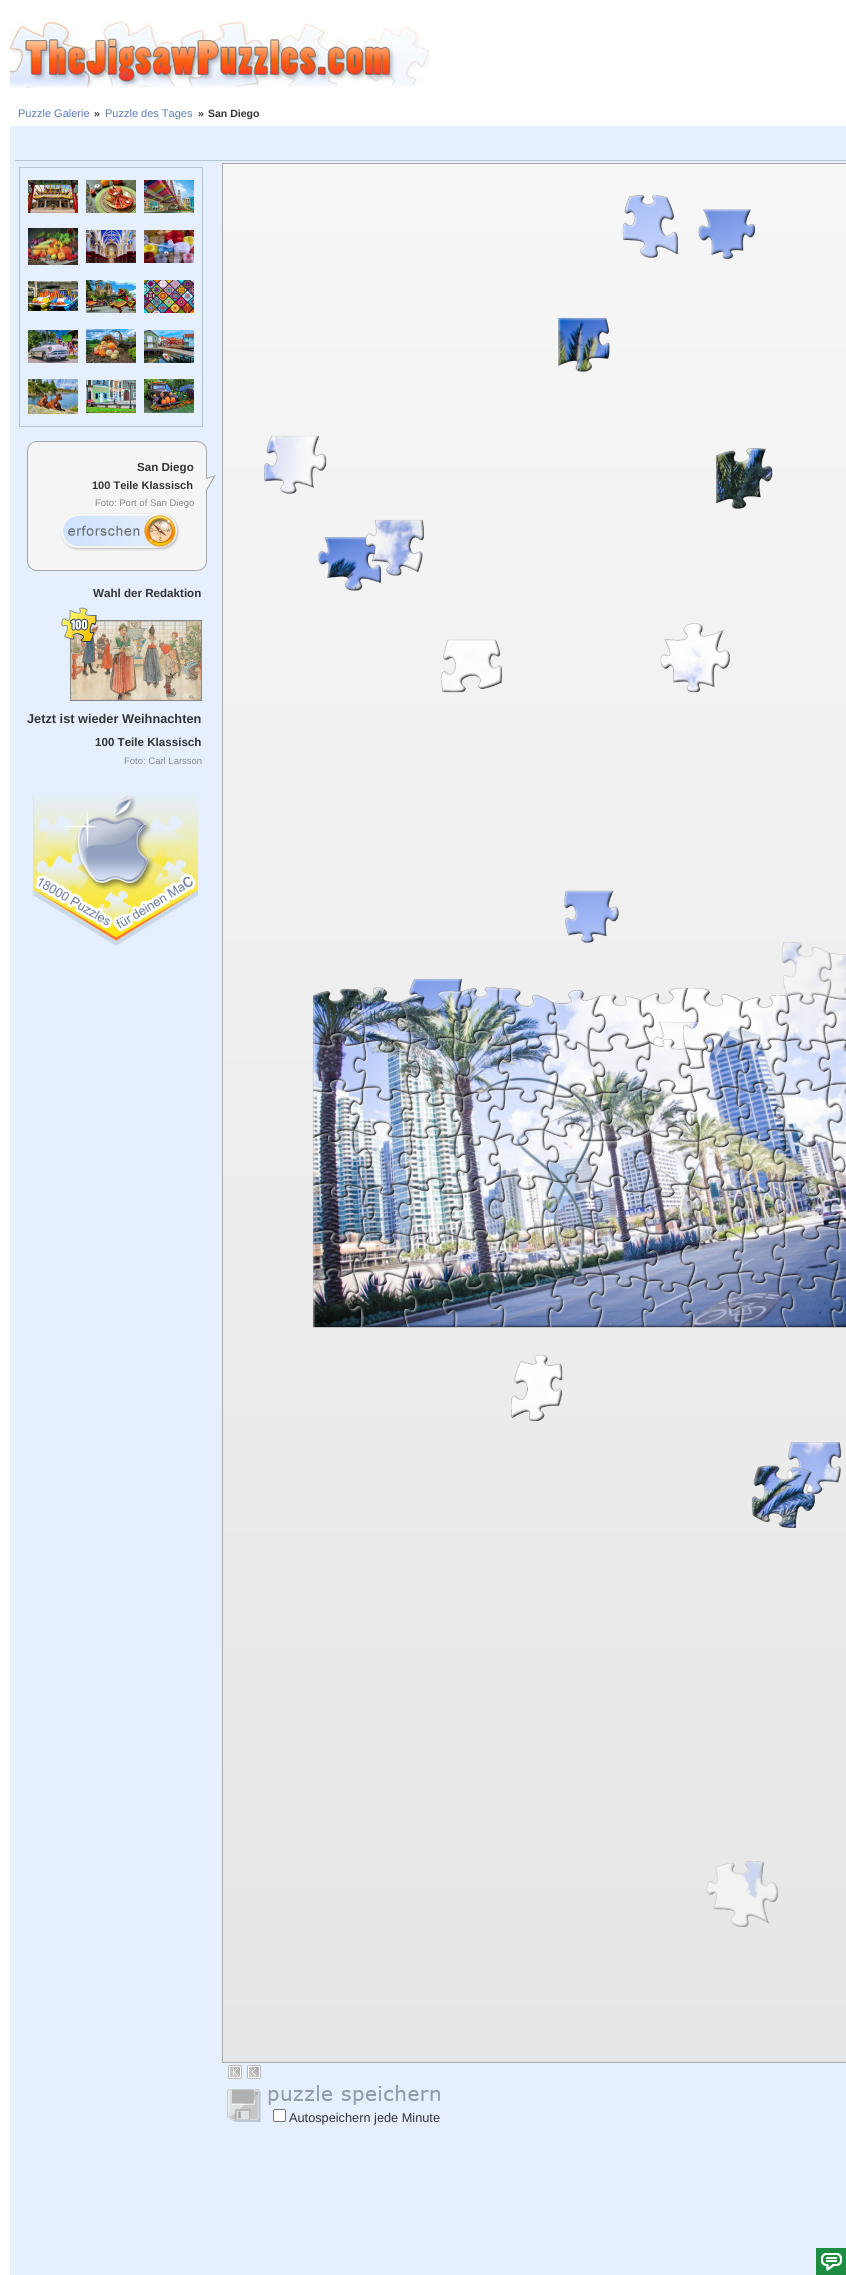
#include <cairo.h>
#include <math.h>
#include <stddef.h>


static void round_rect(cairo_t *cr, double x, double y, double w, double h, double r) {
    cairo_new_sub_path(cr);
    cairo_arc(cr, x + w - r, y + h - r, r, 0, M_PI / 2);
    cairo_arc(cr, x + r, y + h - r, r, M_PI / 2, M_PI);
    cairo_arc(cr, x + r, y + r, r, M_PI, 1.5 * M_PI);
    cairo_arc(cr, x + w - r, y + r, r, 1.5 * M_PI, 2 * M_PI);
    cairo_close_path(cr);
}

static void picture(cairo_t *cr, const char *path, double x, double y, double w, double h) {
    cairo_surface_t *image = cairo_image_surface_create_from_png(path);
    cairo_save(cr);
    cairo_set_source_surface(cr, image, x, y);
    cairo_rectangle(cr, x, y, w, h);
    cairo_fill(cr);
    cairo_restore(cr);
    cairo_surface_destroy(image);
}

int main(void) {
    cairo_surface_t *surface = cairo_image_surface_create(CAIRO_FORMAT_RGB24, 846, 2275);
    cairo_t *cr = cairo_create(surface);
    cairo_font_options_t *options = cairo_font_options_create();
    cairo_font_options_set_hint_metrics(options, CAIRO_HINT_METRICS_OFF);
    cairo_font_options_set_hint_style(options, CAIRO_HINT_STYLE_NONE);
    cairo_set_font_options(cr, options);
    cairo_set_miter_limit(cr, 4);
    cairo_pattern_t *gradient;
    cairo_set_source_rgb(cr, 1, 1, 1);
    cairo_paint(cr);
    picture(cr, "img1.png", 10, 21, 420, 68);
    cairo_select_font_face(cr, "Liberation Sans", CAIRO_FONT_SLANT_NORMAL, CAIRO_FONT_WEIGHT_NORMAL);
    cairo_set_font_size(cr, 11);
    cairo_set_source_rgb(cr, 0.357, 0.486, 0.714);
    cairo_move_to(cr, 18, 117);
    cairo_show_text(cr, "Puzzle Galerie");
    cairo_select_font_face(cr, "Liberation Sans", CAIRO_FONT_SLANT_NORMAL, CAIRO_FONT_WEIGHT_BOLD);
    cairo_set_font_size(cr, 10.5);
    cairo_set_source_rgb(cr, 0.2, 0.2, 0.2);
    cairo_move_to(cr, 94, 117);
    cairo_show_text(cr, "»");
    cairo_select_font_face(cr, "Liberation Sans", CAIRO_FONT_SLANT_NORMAL, CAIRO_FONT_WEIGHT_NORMAL);
    cairo_set_font_size(cr, 11);
    cairo_set_source_rgb(cr, 0.357, 0.486, 0.714);
    cairo_move_to(cr, 105, 117);
    cairo_show_text(cr, "Puzzle des Tages");
    cairo_select_font_face(cr, "Liberation Sans", CAIRO_FONT_SLANT_NORMAL, CAIRO_FONT_WEIGHT_BOLD);
    cairo_set_font_size(cr, 10.5);
    cairo_set_source_rgb(cr, 0.2, 0.2, 0.2);
    cairo_move_to(cr, 198, 117);
    cairo_show_text(cr, "»");
    cairo_move_to(cr, 208, 117);
    cairo_show_text(cr, "San Diego");
    cairo_set_source_rgb(cr, 0.898, 0.937, 0.996);
    cairo_rectangle(cr, 10, 126, 836, 2149);
    cairo_fill(cr);
    cairo_set_source_rgb(cr, 0.706, 0.776, 0.839);
    cairo_rectangle(cr, 15, 160, 831, 1);
    cairo_fill(cr);
    cairo_rectangle(cr, 19.5, 167.5, 183, 259);
    cairo_set_line_width(cr, 1);
    cairo_stroke(cr);
    picture(cr, "img2.png", 28, 180, 50, 33);
    picture(cr, "img3.png", 86, 180, 50, 33);
    picture(cr, "img4.png", 144, 180, 50, 33);
    picture(cr, "img5.png", 28, 228, 50, 37);
    picture(cr, "img6.png", 86, 230, 50, 33);
    picture(cr, "img7.png", 144, 230, 50, 33);
    picture(cr, "img8.png", 28, 281, 50, 30);
    picture(cr, "img9.png", 86, 280, 50, 33);
    picture(cr, "img10.png", 144, 280, 50, 33);
    picture(cr, "img11.png", 28, 330, 50, 33);
    picture(cr, "img12.png", 86, 329, 50, 34);
    picture(cr, "img13.png", 144, 330, 50, 33);
    picture(cr, "img14.png", 28, 379, 50, 35);
    picture(cr, "img15.png", 86, 380, 50, 33);
    picture(cr, "img16.png", 144, 379, 50, 34);
    picture(cr, "img17.png", 27, 441, 189, 130);
    cairo_set_font_size(cr, 11.6);
    cairo_set_source_rgb(cr, 0.2, 0.2, 0.2);
    cairo_move_to(cr, 137, 471);
    cairo_show_text(cr, "San Diego");
    cairo_set_font_size(cr, 11);
    cairo_move_to(cr, 92, 489);
    cairo_show_text(cr, "100 Teile Klassisch");
    cairo_select_font_face(cr, "Liberation Sans", CAIRO_FONT_SLANT_NORMAL, CAIRO_FONT_WEIGHT_NORMAL);
    cairo_set_font_size(cr, 9.5);
    cairo_set_source_rgb(cr, 0.533, 0.533, 0.533);
    cairo_move_to(cr, 95, 506);
    cairo_show_text(cr, "Foto: Port of San Diego");
    picture(cr, "img18.png", 60, 513, 119, 38);
    cairo_select_font_face(cr, "Liberation Sans", CAIRO_FONT_SLANT_NORMAL, CAIRO_FONT_WEIGHT_BOLD);
    cairo_set_font_size(cr, 11.6);
    cairo_set_source_rgb(cr, 0.2, 0.2, 0.2);
    cairo_move_to(cr, 93, 597);
    cairo_show_text(cr, "Wahl der Redaktion");
    cairo_rectangle(cr, 70.5, 620.5, 131, 80);
    cairo_set_source_rgb(cr, 0.522, 0.522, 0.522);
    cairo_stroke(cr);
    picture(cr, "img20.png", 71, 621, 130, 79);
    picture(cr, "img19.png", 61, 607, 36, 35);
    cairo_set_font_size(cr, 12.75);
    cairo_set_source_rgb(cr, 0.2, 0.2, 0.2);
    cairo_move_to(cr, 27, 723);
    cairo_show_text(cr, "Jetzt ist wieder Weihnachten");
    cairo_set_font_size(cr, 11.6);
    cairo_move_to(cr, 95, 746);
    cairo_show_text(cr, "100 Teile Klassisch");
    cairo_select_font_face(cr, "Liberation Sans", CAIRO_FONT_SLANT_NORMAL, CAIRO_FONT_WEIGHT_NORMAL);
    cairo_set_font_size(cr, 9.5);
    cairo_set_source_rgb(cr, 0.533, 0.533, 0.533);
    cairo_move_to(cr, 124, 764);
    cairo_show_text(cr, "Foto: Carl Larsson");
    picture(cr, "img21.png", 32, 792, 168, 154);
    gradient = cairo_pattern_create_linear(596, 2063, 596, 163);
    cairo_pattern_add_color_stop_rgba(gradient, 0, 0.898, 0.902, 0.898, 1);
    cairo_pattern_add_color_stop_rgba(gradient, 1, 0.965, 0.965, 0.965, 1);
    cairo_set_source(cr, gradient);
    cairo_pattern_destroy(gradient);
    cairo_rectangle(cr, 223, 164, 623, 1898);
    cairo_fill(cr);
    cairo_rectangle(cr, 222.5, 163.5, 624, 1899);
    cairo_set_source_rgb(cr, 0.663, 0.667, 0.667);
    cairo_stroke(cr);
    picture(cr, "img22.png", 622, 195, 56, 63);
    picture(cr, "img23.png", 698, 209, 57, 50);
    picture(cr, "img24.png", 558, 317, 52, 55);
    picture(cr, "img25.png", 264, 435, 63, 59);
    picture(cr, "img26.png", 716, 448, 57, 61);
    picture(cr, "img27.png", 318, 537, 63, 54);
    picture(cr, "img28.png", 365, 519, 59, 57);
    picture(cr, "img29.png", 441, 639, 61, 54);
    picture(cr, "img30.png", 660, 623, 70, 70);
    picture(cr, "img31.png", 564, 890, 55, 53);
    picture(cr, "img47.png", 391, 1033, 45, 67);
    picture(cr, "img54.png", 354, 1040, 67, 61);
    picture(cr, "img32.png", 312, 988, 53, 58);
    picture(cr, "img35.png", 454, 987, 62, 60);
    picture(cr, "img34.png", 409, 978, 63, 46);
    picture(cr, "img69.png", 452, 1089, 54, 57);
    picture(cr, "img70.png", 489, 1089, 66, 57);
    picture(cr, "img48.png", 453, 1030, 59, 72);
    picture(cr, "img55.png", 407, 1038, 63, 69);
    picture(cr, "img41.png", 397, 990, 71, 60);
    picture(cr, "img67.png", 350, 1087, 63, 51);
    picture(cr, "img46.png", 312, 1033, 54, 60);
    picture(cr, "img33.png", 350, 987, 61, 66);
    picture(cr, "img37.png", 640, 987, 59, 61);
    picture(cr, "img80.png", 635, 1126, 64, 72);
    picture(cr, "img63.png", 600, 1082, 55, 59);
    picture(cr, "img51.png", 589, 1035, 62, 59);
    picture(cr, "img42.png", 548, 990, 58, 60);
    picture(cr, "img49.png", 499, 1034, 60, 69);
    picture(cr, "img36.png", 499, 988, 59, 61);
    picture(cr, "img59.png", 773, 1039, 58, 56);
    picture(cr, "img60.png", 820, 1040, 26, 46);
    picture(cr, "img45.png", 777, 993, 60, 58);
    picture(cr, "img39.png", 781, 942, 51, 63);
    picture(cr, "img65.png", 737, 1083, 49, 59);
    picture(cr, "img71.png", 685, 1087, 65, 61);
    picture(cr, "img57.png", 680, 1035, 70, 65);
    picture(cr, "img44.png", 740, 995, 50, 56);
    picture(cr, "img43.png", 589, 994, 65, 58);
    picture(cr, "img52.png", 653, 1021, 61, 48);
    picture(cr, "img56.png", 637, 1038, 56, 56);
    picture(cr, "img38.png", 683, 987, 68, 64);
    picture(cr, "img53.png", 824, 996, 22, 55);
    picture(cr, "img40.png", 821, 952, 25, 48);
    picture(cr, "img89.png", 489, 1176, 69, 67);
    picture(cr, "img77.png", 490, 1130, 69, 60);
    picture(cr, "img108.png", 516, 1247, 60, 74);
    picture(cr, "img98.png", 543, 1225, 66, 62);
    picture(cr, "img90.png", 543, 1173, 60, 66);
    picture(cr, "img100.png", 645, 1219, 55, 74);
    picture(cr, "img93.png", 689, 1177, 57, 65);
    picture(cr, "img117.png", 682, 1273, 60, 55);
    picture(cr, "img101.png", 681, 1225, 63, 66);
    picture(cr, "img92.png", 643, 1184, 60, 51);
    picture(cr, "img79.png", 589, 1126, 63, 67);
    picture(cr, "img62.png", 542, 1084, 71, 58);
    picture(cr, "img50.png", 543, 1035, 62, 63);
    picture(cr, "img72.png", 827, 1084, 19, 60);
    picture(cr, "img96.png", 830, 1186, 16, 44);
    picture(cr, "img95.png", 774, 1180, 67, 60);
    picture(cr, "img94.png", 732, 1181, 55, 59);
    picture(cr, "img83.png", 773, 1131, 73, 66);
    picture(cr, "img66.png", 775, 1080, 68, 67);
    picture(cr, "img58.png", 737, 1039, 51, 57);
    picture(cr, "img86.png", 363, 1184, 50, 61);
    picture(cr, "img111.png", 346, 1271, 70, 57);
    picture(cr, "img112.png", 403, 1278, 53, 50);
    picture(cr, "img105.png", 353, 1232, 58, 54);
    picture(cr, "img87.png", 399, 1179, 65, 67);
    picture(cr, "img74.png", 353, 1122, 60, 74);
    picture(cr, "img110.png", 312, 1268, 50, 60);
    picture(cr, "img104.png", 312, 1230, 55, 51);
    picture(cr, "img85.png", 312, 1183, 63, 61);
    picture(cr, "img73.png", 312, 1130, 60, 68);
    picture(cr, "img61.png", 312, 1080, 52, 63);
    picture(cr, "img81.png", 685, 1135, 68, 56);
    picture(cr, "img64.png", 641, 1080, 59, 62);
    picture(cr, "img88.png", 451, 1177, 55, 65);
    picture(cr, "img76.png", 455, 1135, 46, 58);
    picture(cr, "img68.png", 402, 1092, 62, 47);
    picture(cr, "img75.png", 399, 1127, 72, 67);
    picture(cr, "img115.png", 549, 1274, 56, 54);
    picture(cr, "img116.png", 590, 1274, 65, 54);
    picture(cr, "img99.png", 595, 1227, 63, 61);
    picture(cr, "img91.png", 590, 1176, 65, 66);
    picture(cr, "img78.png", 544, 1124, 60, 59);
    picture(cr, "img82.png", 739, 1130, 48, 64);
    picture(cr, "img84.png", 832, 1142, 14, 47);
    picture(cr, "img114.png", 489, 1271, 74, 57);
    picture(cr, "img113.png", 442, 1272, 62, 56);
    picture(cr, "img107.png", 443, 1230, 64, 58);
    picture(cr, "img97.png", 497, 1227, 64, 61);
    picture(cr, "img102.png", 734, 1226, 52, 58);
    picture(cr, "img109.png", 826, 1228, 20, 54);
    picture(cr, "img118.png", 728, 1272, 66, 56);
    picture(cr, "img121.png", 831, 1278, 15, 50);
    picture(cr, "img103.png", 773, 1226, 67, 64);
    picture(cr, "img106.png", 399, 1234, 59, 56);
    picture(cr, "img119.png", 779, 1275, 64, 53);
    picture(cr, "img120.png", 642, 1281, 51, 47);
    picture(cr, "img122.png", 511, 1354, 52, 68);
    picture(cr, "img123.png", 787, 1442, 54, 53);
    picture(cr, "img124.png", 751, 1465, 64, 63);
    picture(cr, "img125.png", 706, 1861, 72, 66);
    picture(cr, "img126.png", 228, 2065, 14, 14);
    picture(cr, "img127.png", 247, 2065, 14, 14);
    picture(cr, "img128.png", 227, 2085, 213, 37);
    cairo_set_source_rgb(cr, 1, 1, 1);
    round_rect(cr, 273.5, 2109.5, 12, 12, 1.5);
    cairo_fill_preserve(cr);
    cairo_set_source_rgb(cr, 0.463, 0.463, 0.463);
    cairo_stroke(cr);
    cairo_set_font_size(cr, 12.75);
    cairo_set_source_rgb(cr, 0.2, 0.2, 0.2);
    cairo_move_to(cr, 289, 2122);
    cairo_show_text(cr, "Autospeichern jede Minute");
    cairo_set_source_rgb(cr, 0.114, 0.553, 0.267);
    cairo_rectangle(cr, 816, 2248, 30, 27);
    cairo_fill(cr);
    picture(cr, "img129.png", 821, 2253, 21, 18);
    cairo_surface_write_to_png(surface, "page.png");
    cairo_font_options_destroy(options);
    cairo_destroy(cr);
    cairo_surface_destroy(surface);
    return 0;
}
